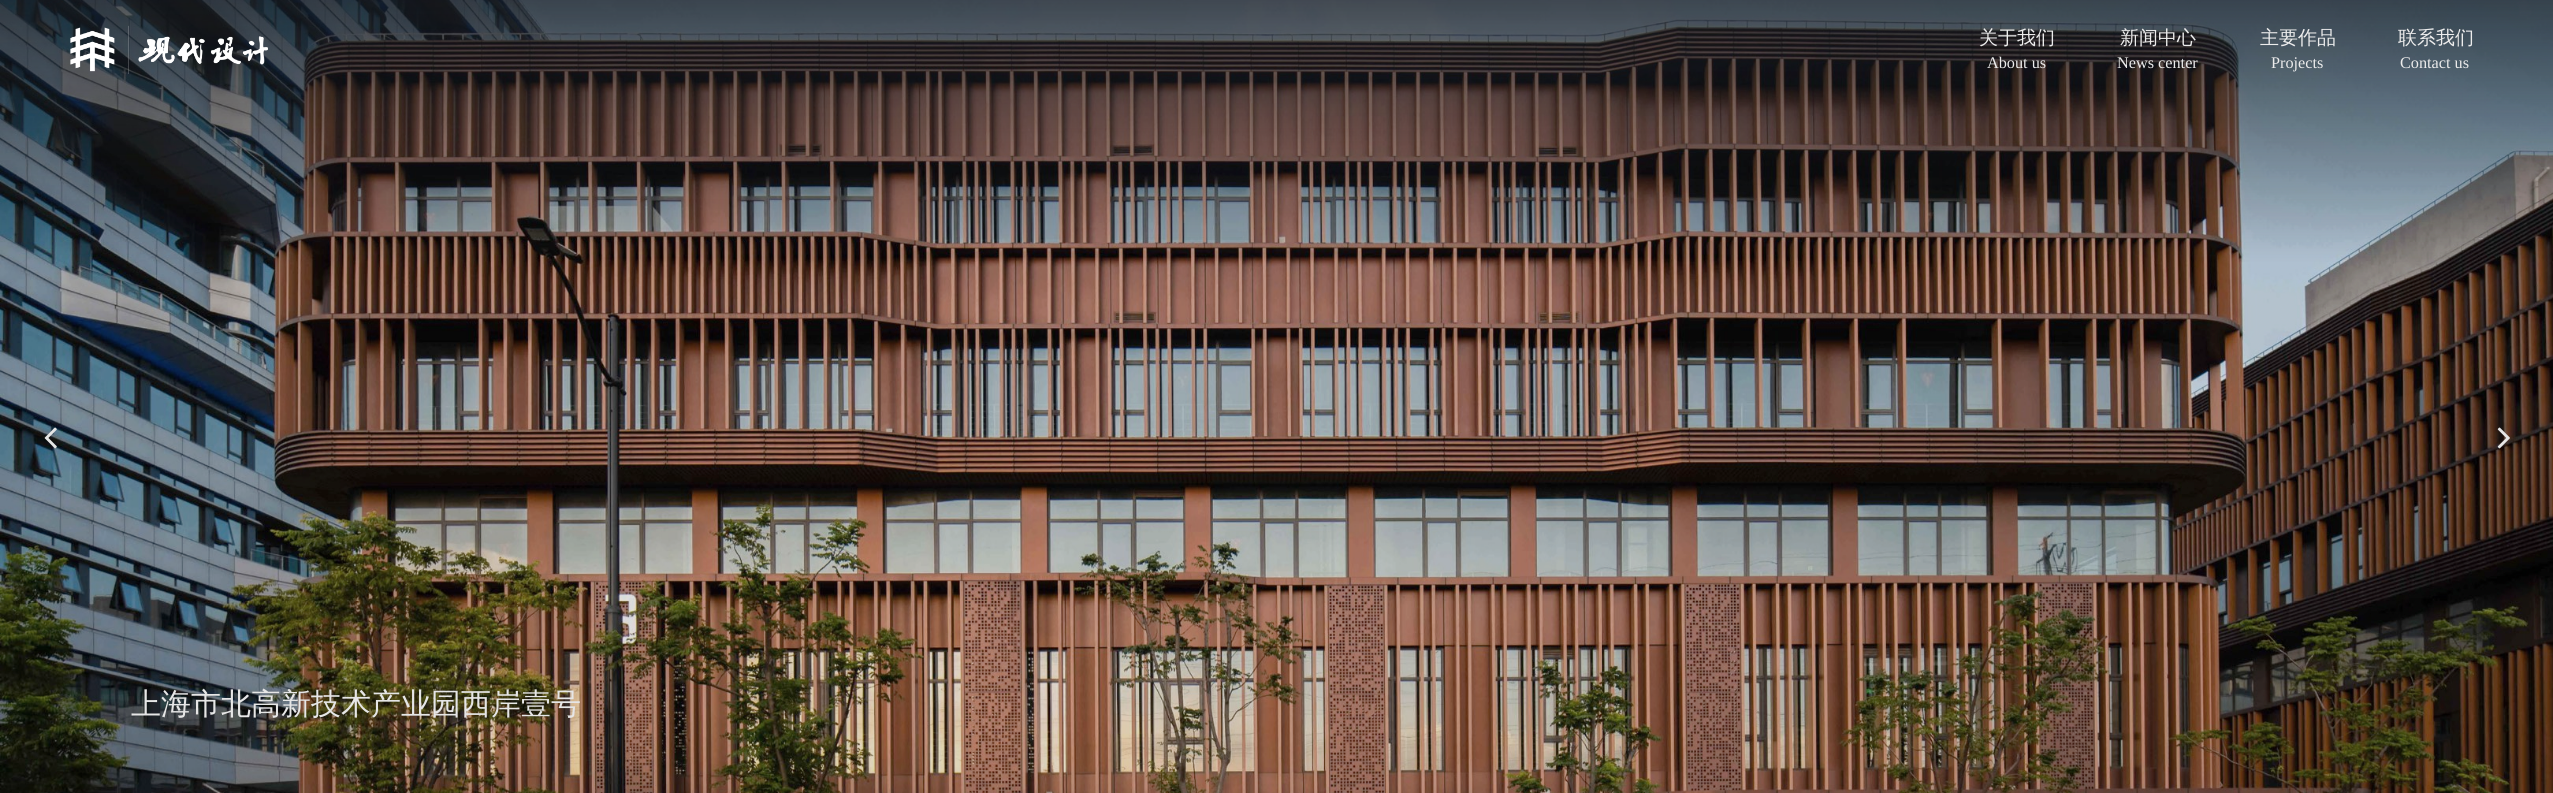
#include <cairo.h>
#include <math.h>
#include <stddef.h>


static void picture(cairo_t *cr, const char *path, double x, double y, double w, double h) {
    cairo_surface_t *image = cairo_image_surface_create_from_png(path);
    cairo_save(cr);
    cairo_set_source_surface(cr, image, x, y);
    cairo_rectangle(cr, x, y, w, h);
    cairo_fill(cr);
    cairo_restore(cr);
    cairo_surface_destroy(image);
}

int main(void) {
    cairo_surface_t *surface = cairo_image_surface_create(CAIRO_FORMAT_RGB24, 2553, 793);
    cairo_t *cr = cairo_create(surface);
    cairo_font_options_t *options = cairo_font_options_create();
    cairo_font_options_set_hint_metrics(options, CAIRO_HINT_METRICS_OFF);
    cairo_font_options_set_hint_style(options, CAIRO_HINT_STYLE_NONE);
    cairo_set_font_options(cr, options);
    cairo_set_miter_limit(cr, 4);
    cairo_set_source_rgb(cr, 1, 1, 1);
    cairo_paint(cr);
    picture(cr, "img4.png", 0, 0, 2553, 793);
    picture(cr, "img1.png", 70, 25, 198, 49);
    cairo_select_font_face(cr, "WenQuanYi Zen Hei Medium", CAIRO_FONT_SLANT_NORMAL, CAIRO_FONT_WEIGHT_NORMAL);
    cairo_set_font_size(cr, 19);
    cairo_set_source_rgb(cr, 0.925, 0.925, 0.925);
    cairo_move_to(cr, 1979, 44);
    cairo_show_text(cr, "关于我们");
    cairo_select_font_face(cr, "Liberation Serif", CAIRO_FONT_SLANT_NORMAL, CAIRO_FONT_WEIGHT_NORMAL);
    cairo_set_font_size(cr, 16.25);
    cairo_move_to(cr, 1987, 68);
    cairo_show_text(cr, "About us");
    cairo_select_font_face(cr, "WenQuanYi Zen Hei Medium", CAIRO_FONT_SLANT_NORMAL, CAIRO_FONT_WEIGHT_NORMAL);
    cairo_set_font_size(cr, 19);
    cairo_move_to(cr, 2120, 44);
    cairo_show_text(cr, "新闻中心");
    cairo_select_font_face(cr, "Liberation Serif", CAIRO_FONT_SLANT_NORMAL, CAIRO_FONT_WEIGHT_NORMAL);
    cairo_set_font_size(cr, 16.25);
    cairo_move_to(cr, 2117, 68);
    cairo_show_text(cr, "News center");
    cairo_select_font_face(cr, "WenQuanYi Zen Hei Medium", CAIRO_FONT_SLANT_NORMAL, CAIRO_FONT_WEIGHT_NORMAL);
    cairo_set_font_size(cr, 19);
    cairo_move_to(cr, 2260, 44);
    cairo_show_text(cr, "主要作品");
    cairo_select_font_face(cr, "Liberation Serif", CAIRO_FONT_SLANT_NORMAL, CAIRO_FONT_WEIGHT_NORMAL);
    cairo_set_font_size(cr, 16.25);
    cairo_move_to(cr, 2271, 68);
    cairo_show_text(cr, "Projects");
    cairo_select_font_face(cr, "WenQuanYi Zen Hei Medium", CAIRO_FONT_SLANT_NORMAL, CAIRO_FONT_WEIGHT_NORMAL);
    cairo_set_font_size(cr, 19);
    cairo_move_to(cr, 2398, 44);
    cairo_show_text(cr, "联系我们");
    cairo_select_font_face(cr, "Liberation Serif", CAIRO_FONT_SLANT_NORMAL, CAIRO_FONT_WEIGHT_NORMAL);
    cairo_set_font_size(cr, 16.25);
    cairo_move_to(cr, 2400, 68);
    cairo_show_text(cr, "Contact us");
    picture(cr, "img2.png", 44, 427, 13, 22);
    picture(cr, "img3.png", 2497, 427, 13, 22);
    cairo_select_font_face(cr, "WenQuanYi Zen Hei Medium", CAIRO_FONT_SLANT_NORMAL, CAIRO_FONT_WEIGHT_NORMAL);
    cairo_set_font_size(cr, 30);
    cairo_set_source_rgb(cr, 0.902, 0.902, 0.902);
    cairo_move_to(cr, 131, 714);
    cairo_show_text(cr, "上海市北高新技术产业园西岸壹号");
    cairo_surface_write_to_png(surface, "page.png");
    cairo_font_options_destroy(options);
    cairo_destroy(cr);
    cairo_surface_destroy(surface);
    return 0;
}
